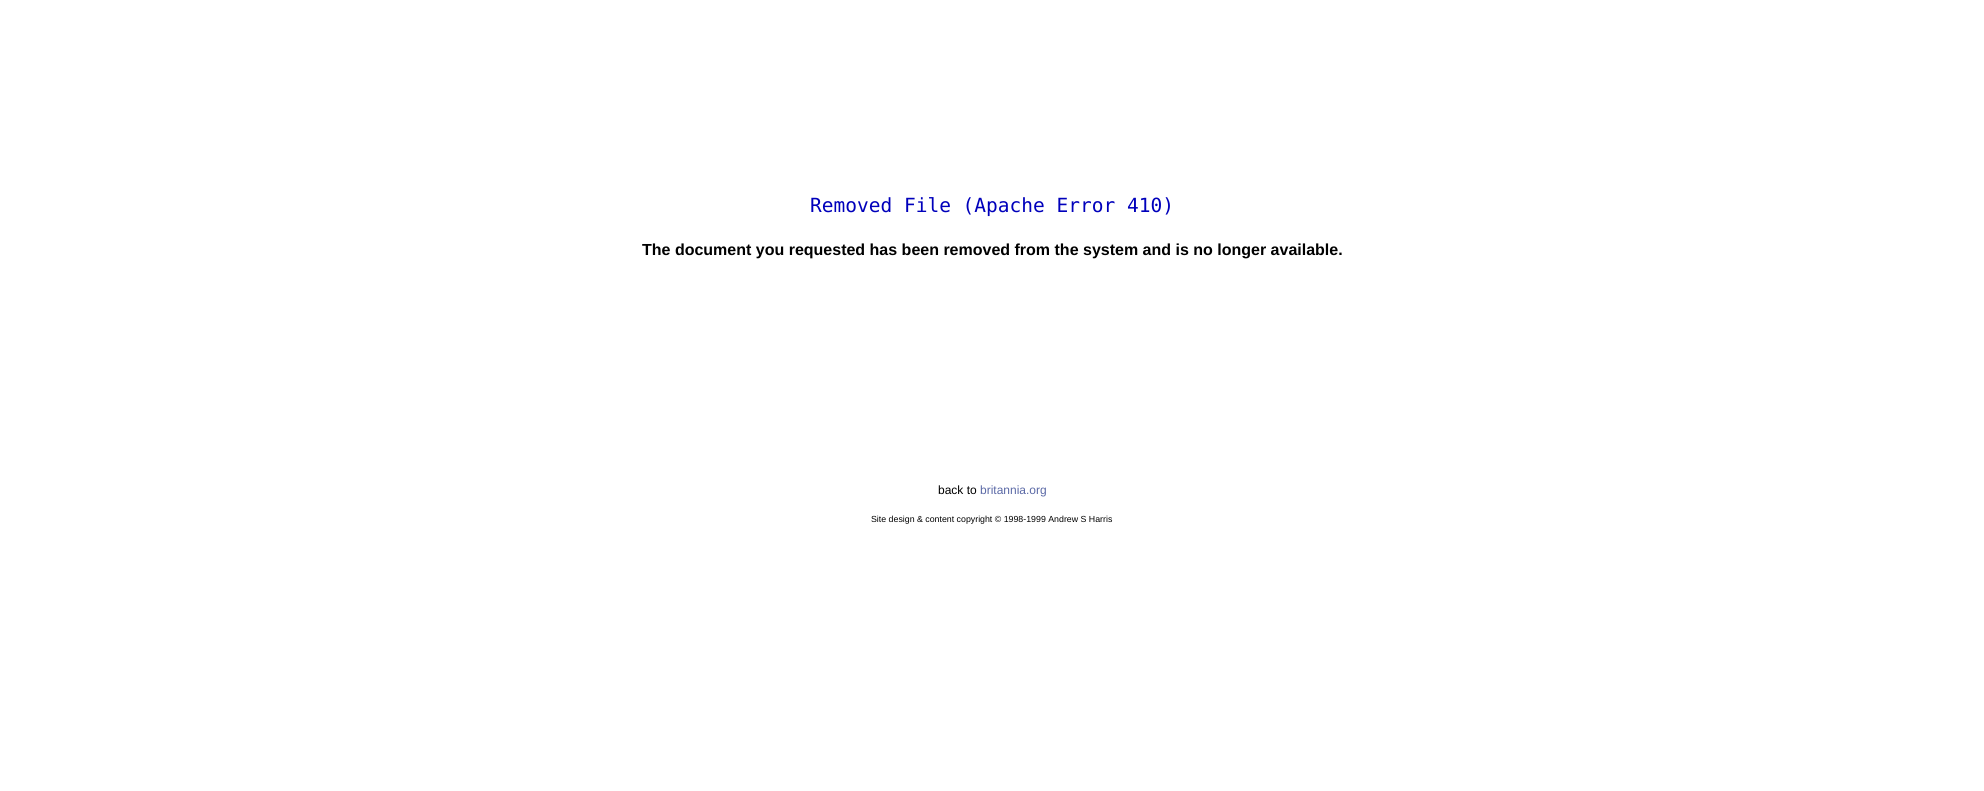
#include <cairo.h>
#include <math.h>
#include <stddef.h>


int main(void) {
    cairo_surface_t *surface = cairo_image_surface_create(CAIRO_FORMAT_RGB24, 1984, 791);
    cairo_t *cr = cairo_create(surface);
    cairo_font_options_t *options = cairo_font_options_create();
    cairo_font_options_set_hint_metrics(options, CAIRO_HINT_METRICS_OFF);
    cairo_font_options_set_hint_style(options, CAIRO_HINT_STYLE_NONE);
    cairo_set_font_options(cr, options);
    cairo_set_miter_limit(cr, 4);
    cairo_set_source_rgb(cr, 1, 1, 1);
    cairo_paint(cr);
    cairo_select_font_face(cr, "DejaVu Sans Mono", CAIRO_FONT_SLANT_NORMAL, CAIRO_FONT_WEIGHT_NORMAL);
    cairo_set_font_size(cr, 19.5);
    cairo_set_source_rgb(cr, 0, 0, 0.733);
    cairo_move_to(cr, 810, 212);
    cairo_show_text(cr, "Removed File (Apache Error 410)");
    cairo_select_font_face(cr, "Liberation Sans", CAIRO_FONT_SLANT_NORMAL, CAIRO_FONT_WEIGHT_BOLD);
    cairo_set_font_size(cr, 16);
    cairo_set_source_rgb(cr, 0, 0, 0);
    cairo_move_to(cr, 642, 255);
    cairo_show_text(cr, "The document you requested has been removed from the system and is no longer available.");
    cairo_select_font_face(cr, "Liberation Sans", CAIRO_FONT_SLANT_NORMAL, CAIRO_FONT_WEIGHT_NORMAL);
    cairo_set_font_size(cr, 12);
    cairo_move_to(cr, 938, 494);
    cairo_show_text(cr, "back to");
    cairo_set_source_rgb(cr, 0.357, 0.412, 0.651);
    cairo_move_to(cr, 980, 494);
    cairo_show_text(cr, "britannia.org");
    cairo_set_font_size(cr, 8.8);
    cairo_set_source_rgb(cr, 0, 0, 0);
    cairo_move_to(cr, 871, 522);
    cairo_show_text(cr, "Site design & content copyright © 1998-1999 Andrew S Harris");
    cairo_surface_write_to_png(surface, "page.png");
    cairo_font_options_destroy(options);
    cairo_destroy(cr);
    cairo_surface_destroy(surface);
    return 0;
}
